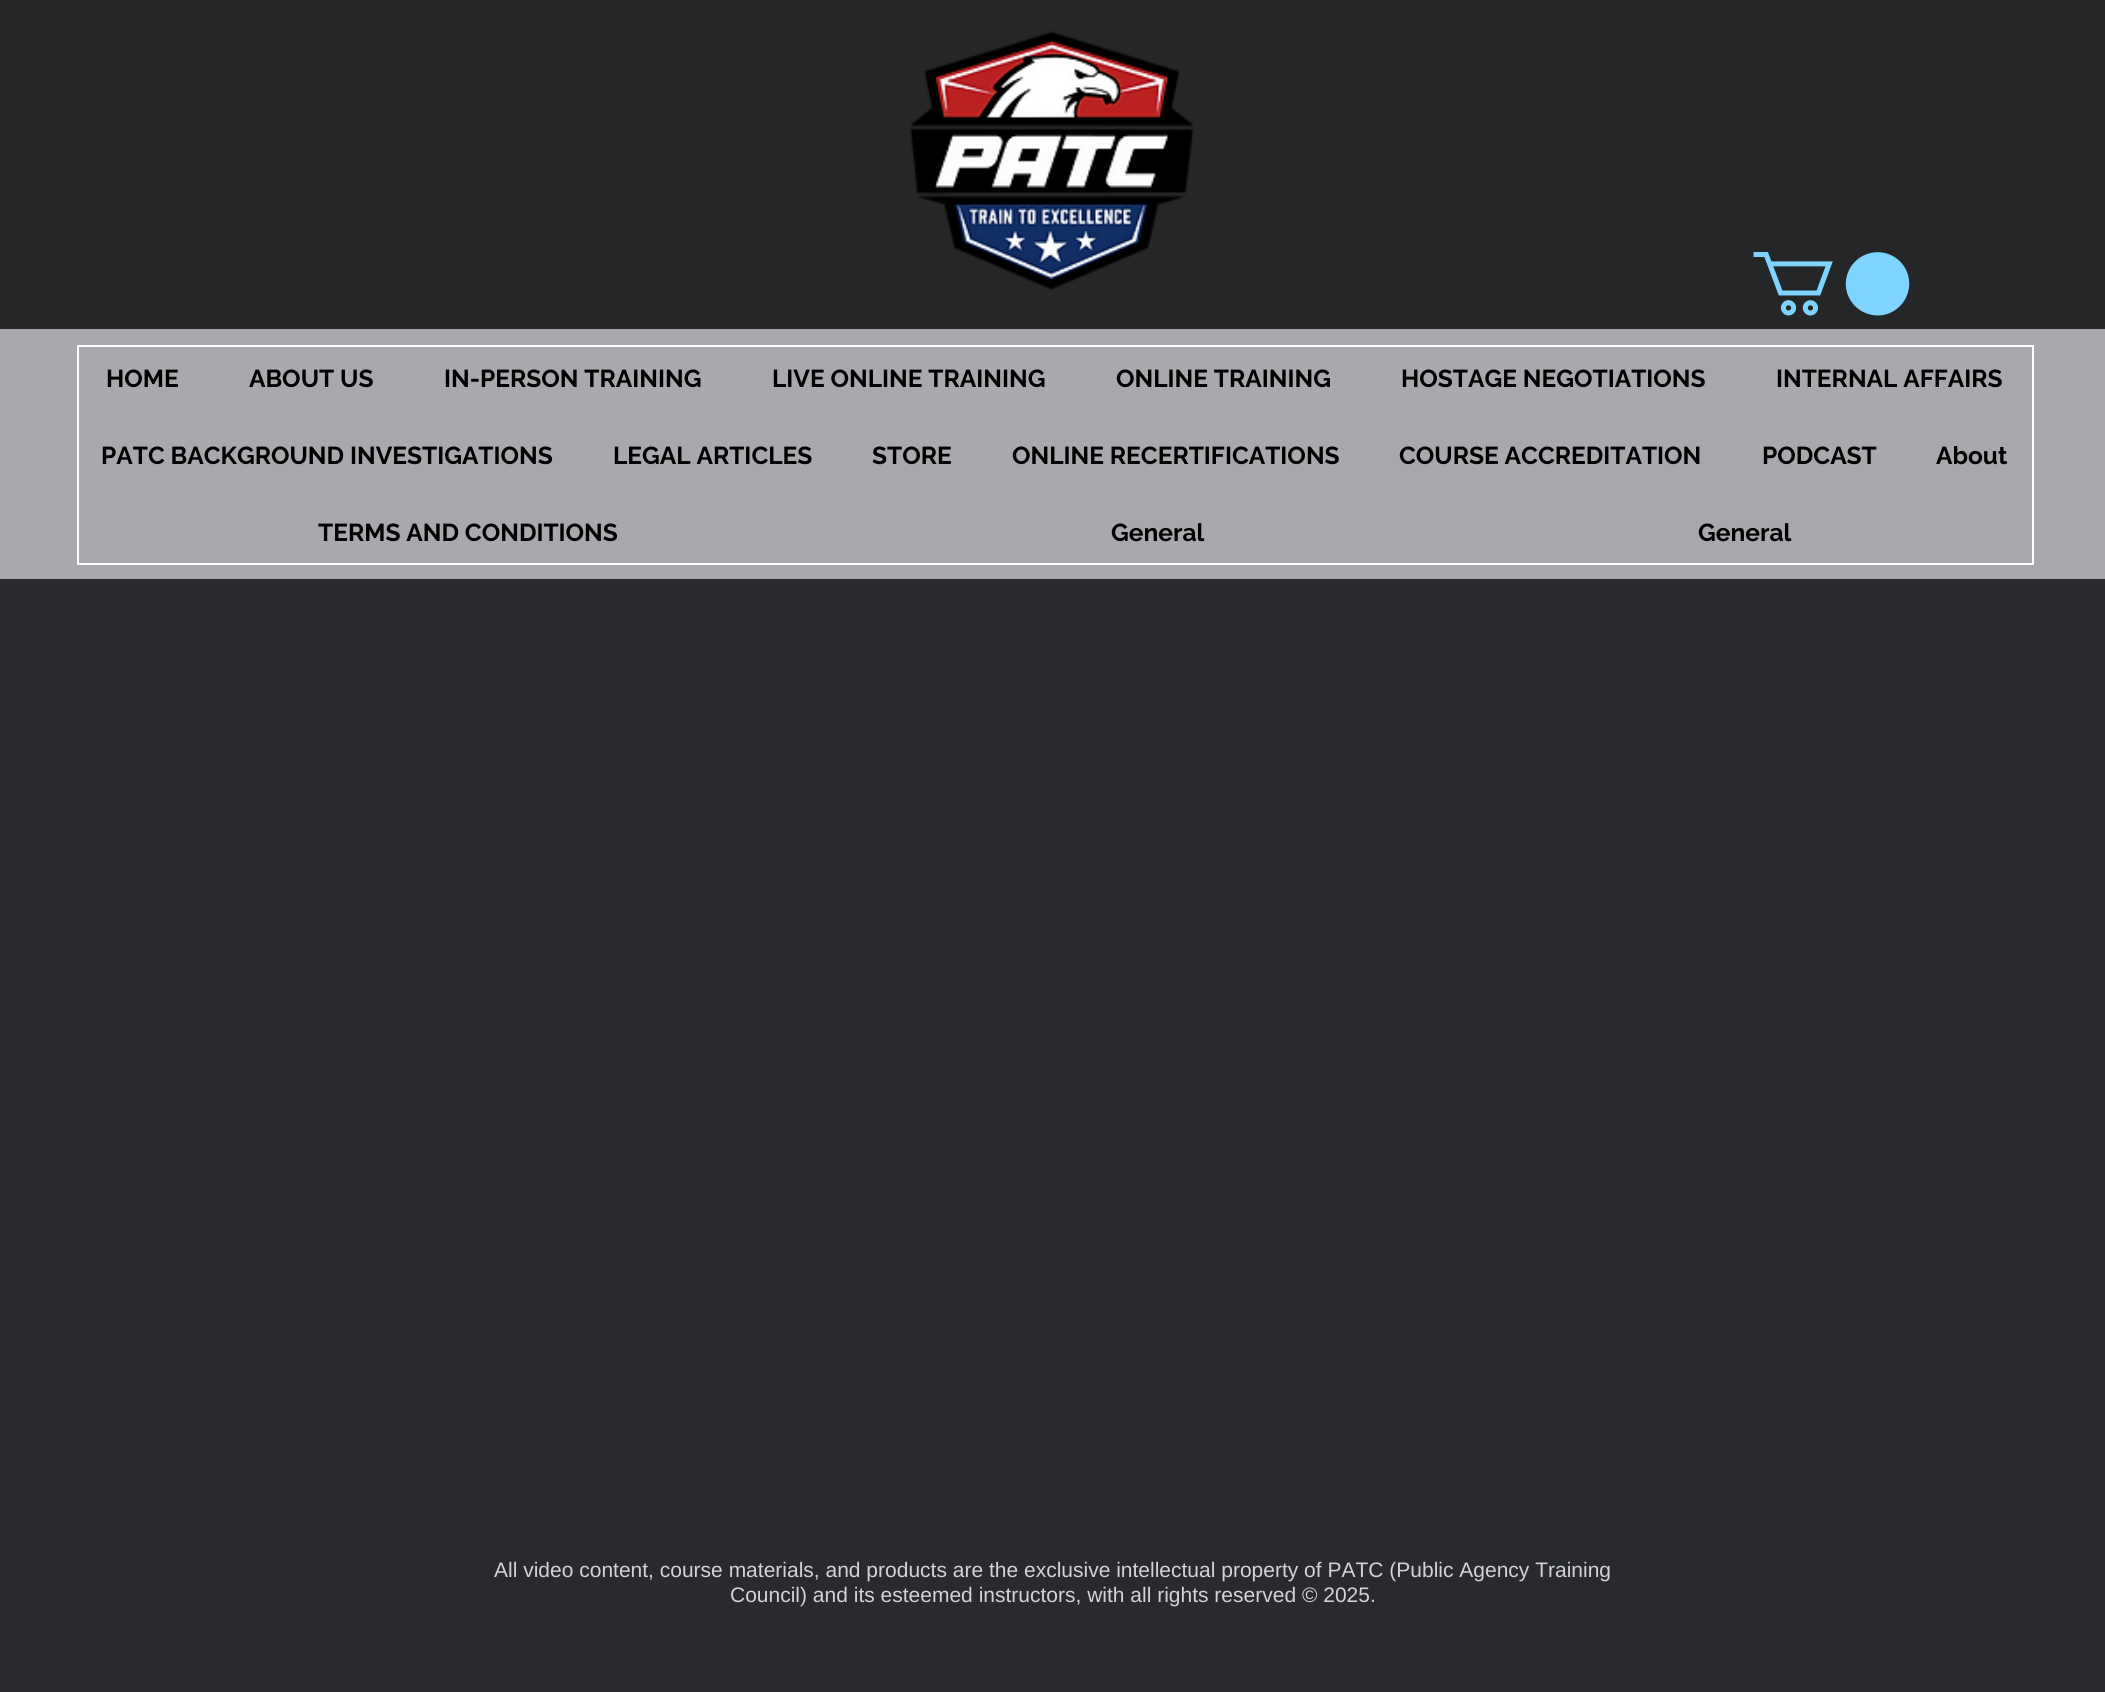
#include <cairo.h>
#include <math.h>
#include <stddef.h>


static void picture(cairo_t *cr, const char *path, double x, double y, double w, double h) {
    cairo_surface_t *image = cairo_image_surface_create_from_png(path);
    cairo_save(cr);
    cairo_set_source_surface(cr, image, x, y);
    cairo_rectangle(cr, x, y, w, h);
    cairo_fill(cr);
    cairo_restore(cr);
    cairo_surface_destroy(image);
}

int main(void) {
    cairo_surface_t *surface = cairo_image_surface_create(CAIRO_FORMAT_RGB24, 2105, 1692);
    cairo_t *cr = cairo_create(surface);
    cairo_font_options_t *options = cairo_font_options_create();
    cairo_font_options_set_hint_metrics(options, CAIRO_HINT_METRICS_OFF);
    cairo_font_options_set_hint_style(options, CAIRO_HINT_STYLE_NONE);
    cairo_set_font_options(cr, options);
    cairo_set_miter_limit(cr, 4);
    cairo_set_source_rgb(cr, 0.161, 0.165, 0.176);
    cairo_paint(cr);
    cairo_set_source_rgb(cr, 0.145, 0.149, 0.153);
    cairo_rectangle(cr, 0, 0, 2105, 329);
    cairo_fill(cr);
    picture(cr, "img1.png", 910, 31, 284, 259);
    picture(cr, "img2.png", 1753, 252, 157, 64);
    cairo_set_source_rgb(cr, 0.655, 0.663, 0.675);
    cairo_rectangle(cr, 0, 329, 2105, 250);
    cairo_fill(cr);
    cairo_rectangle(cr, 78, 346, 1955, 218);
    cairo_set_source_rgb(cr, 1, 1, 1);
    cairo_stroke(cr);
    cairo_select_font_face(cr, "Raleway", CAIRO_FONT_SLANT_NORMAL, CAIRO_FONT_WEIGHT_BOLD);
    cairo_set_font_size(cr, 24.5);
    cairo_set_source_rgb(cr, 0, 0, 0);
    cairo_move_to(cr, 106, 387);
    cairo_show_text(cr, "HOME");
    cairo_move_to(cr, 249, 387);
    cairo_show_text(cr, "ABOUT US");
    cairo_move_to(cr, 444, 387);
    cairo_show_text(cr, "IN-PERSON TRAINING");
    cairo_move_to(cr, 772, 387);
    cairo_show_text(cr, "LIVE ONLINE TRAINING");
    cairo_move_to(cr, 1116, 387);
    cairo_show_text(cr, "ONLINE TRAINING");
    cairo_move_to(cr, 1401, 387);
    cairo_show_text(cr, "HOSTAGE NEGOTIATIONS");
    cairo_move_to(cr, 1776, 387);
    cairo_show_text(cr, "INTERNAL AFFAIRS");
    cairo_move_to(cr, 101, 464);
    cairo_show_text(cr, "PATC BACKGROUND INVESTIGATIONS");
    cairo_move_to(cr, 613, 464);
    cairo_show_text(cr, "LEGAL ARTICLES");
    cairo_move_to(cr, 872, 464);
    cairo_show_text(cr, "STORE");
    cairo_move_to(cr, 1012, 464);
    cairo_show_text(cr, "ONLINE RECERTIFICATIONS");
    cairo_move_to(cr, 1399, 464);
    cairo_show_text(cr, "COURSE ACCREDITATION");
    cairo_move_to(cr, 1762, 464);
    cairo_show_text(cr, "PODCAST");
    cairo_move_to(cr, 1936, 464);
    cairo_show_text(cr, "About");
    cairo_move_to(cr, 318, 541);
    cairo_show_text(cr, "TERMS AND CONDITIONS");
    cairo_move_to(cr, 1111, 541);
    cairo_show_text(cr, "General");
    cairo_move_to(cr, 1698, 541);
    cairo_show_text(cr, "General");
    cairo_select_font_face(cr, "Liberation Sans", CAIRO_FONT_SLANT_NORMAL, CAIRO_FONT_WEIGHT_NORMAL);
    cairo_set_font_size(cr, 21);
    cairo_set_source_rgb(cr, 0.82, 0.827, 0.835);
    cairo_move_to(cr, 494, 1577);
    cairo_show_text(cr, "All video content, course materials, and products are the exclusive intellectual property of PATC (Public Agency Training");
    cairo_move_to(cr, 730, 1602);
    cairo_show_text(cr, "Council) and its esteemed instructors, with all rights reserved © 2025.");
    cairo_surface_write_to_png(surface, "page.png");
    cairo_font_options_destroy(options);
    cairo_destroy(cr);
    cairo_surface_destroy(surface);
    return 0;
}
